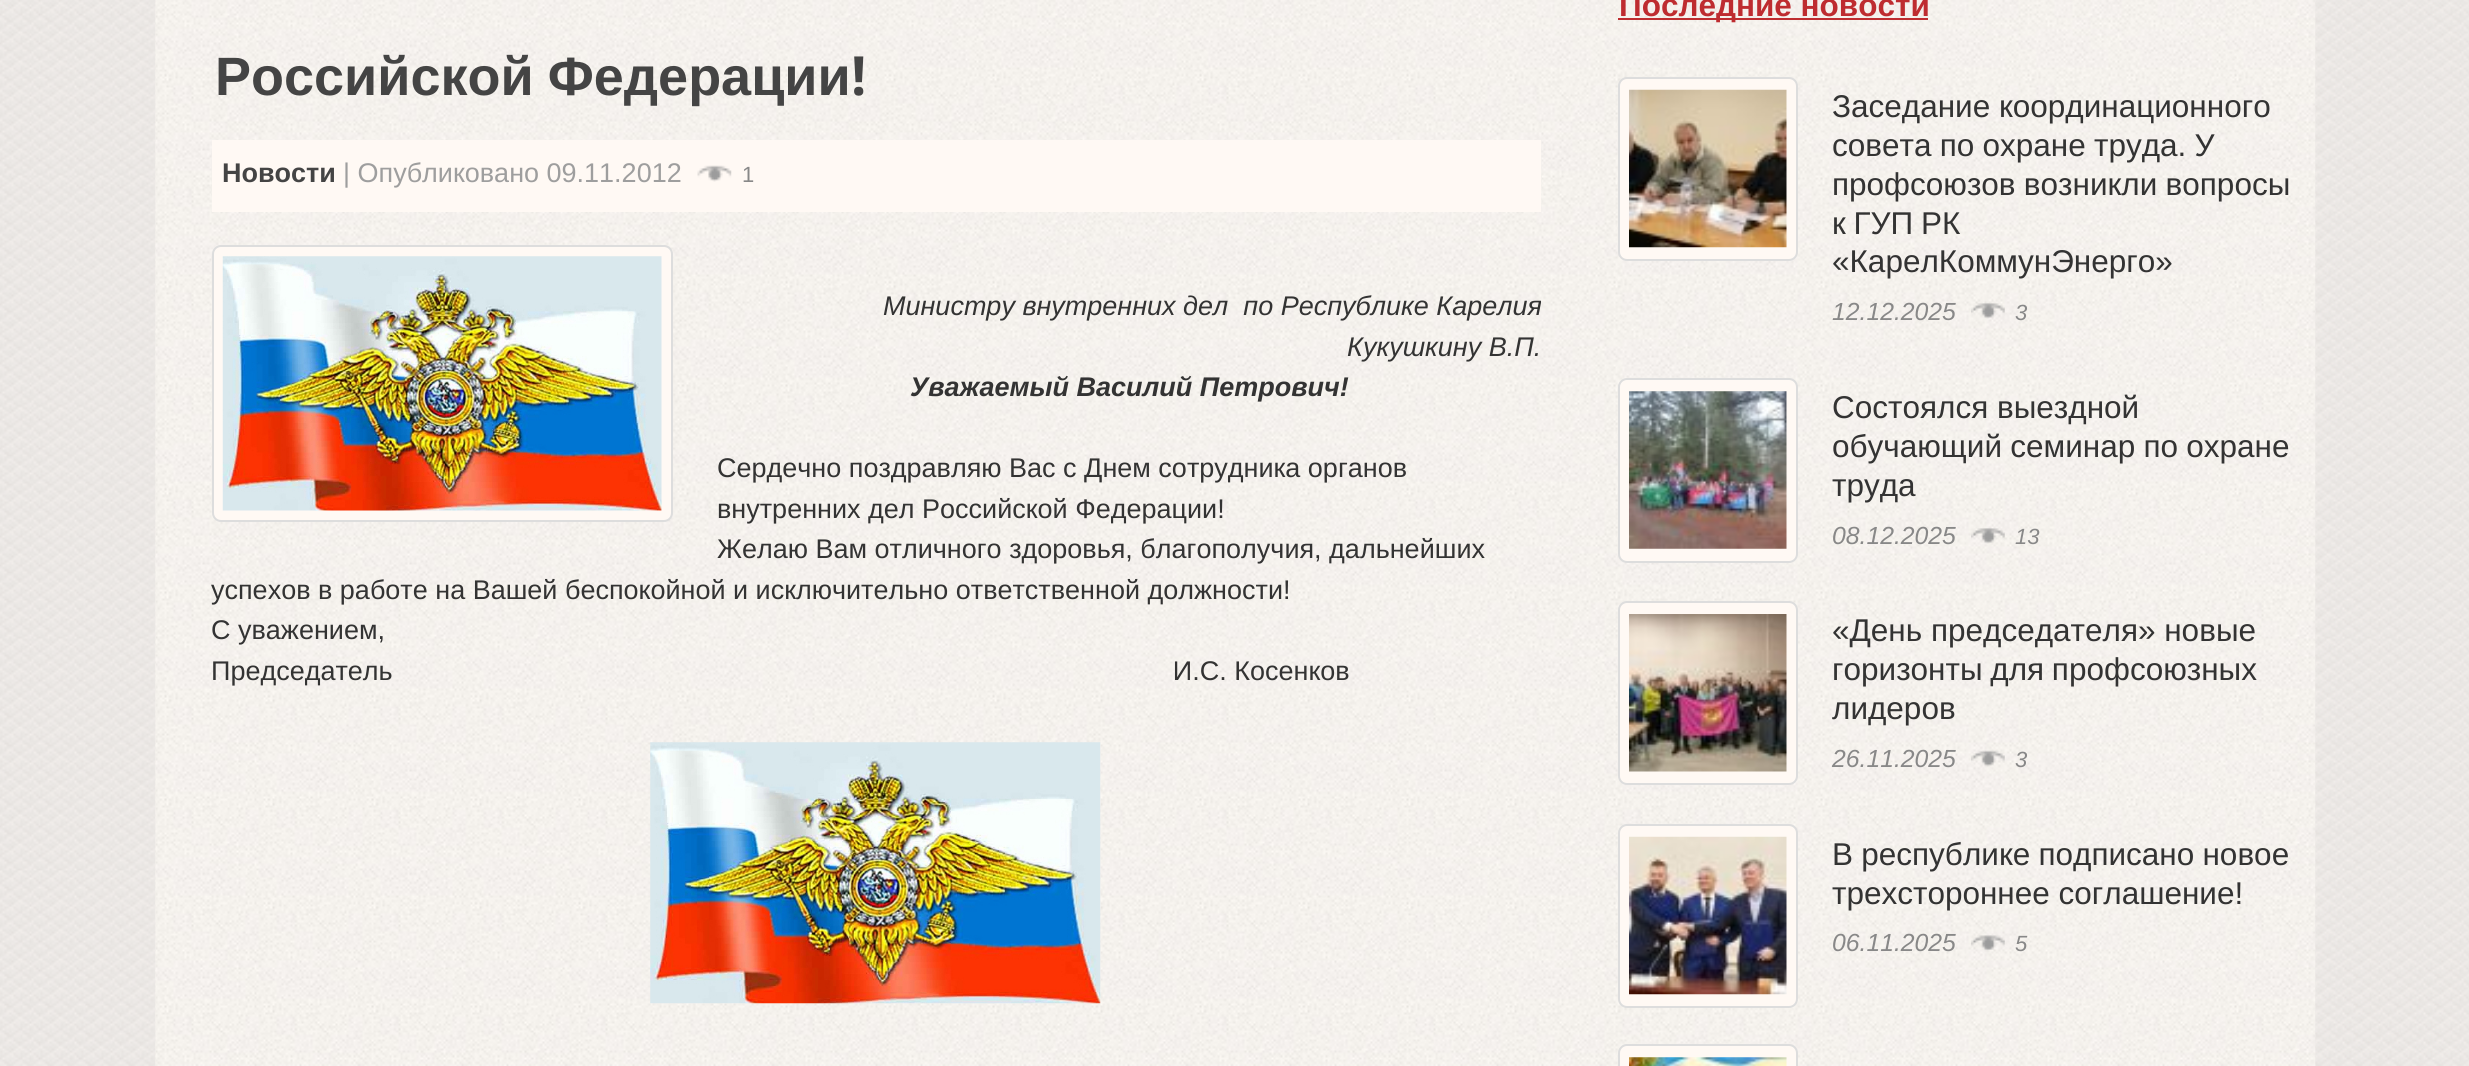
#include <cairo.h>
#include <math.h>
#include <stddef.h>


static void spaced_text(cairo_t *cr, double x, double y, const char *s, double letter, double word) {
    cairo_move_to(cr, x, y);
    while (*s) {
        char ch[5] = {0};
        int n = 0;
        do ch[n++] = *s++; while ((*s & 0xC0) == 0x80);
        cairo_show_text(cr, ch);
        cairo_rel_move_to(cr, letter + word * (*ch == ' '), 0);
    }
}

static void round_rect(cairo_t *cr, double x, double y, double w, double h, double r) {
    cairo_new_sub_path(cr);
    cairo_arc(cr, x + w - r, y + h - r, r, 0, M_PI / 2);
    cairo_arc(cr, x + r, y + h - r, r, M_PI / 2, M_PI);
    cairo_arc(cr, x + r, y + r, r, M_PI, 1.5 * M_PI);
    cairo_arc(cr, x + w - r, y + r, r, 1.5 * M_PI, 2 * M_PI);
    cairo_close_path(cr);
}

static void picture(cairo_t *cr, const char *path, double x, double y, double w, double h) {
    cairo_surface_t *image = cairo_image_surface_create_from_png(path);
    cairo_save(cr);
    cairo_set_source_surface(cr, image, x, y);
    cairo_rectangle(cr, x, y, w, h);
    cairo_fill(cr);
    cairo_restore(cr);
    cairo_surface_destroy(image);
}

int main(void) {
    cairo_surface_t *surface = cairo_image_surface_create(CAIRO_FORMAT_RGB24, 2469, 1066);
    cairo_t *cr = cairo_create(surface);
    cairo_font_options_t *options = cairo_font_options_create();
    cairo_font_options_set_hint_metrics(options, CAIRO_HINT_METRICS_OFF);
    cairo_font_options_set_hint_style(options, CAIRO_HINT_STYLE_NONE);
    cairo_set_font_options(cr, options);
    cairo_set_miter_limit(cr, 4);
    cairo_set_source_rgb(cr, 1, 1, 1);
    cairo_paint(cr);
    picture(cr, "img1.png", 0, 0, 2469, 1066);
    picture(cr, "img2.png", 155, 0, 2161, 1066);
    cairo_select_font_face(cr, "Liberation Sans", CAIRO_FONT_SLANT_NORMAL, CAIRO_FONT_WEIGHT_BOLD);
    cairo_set_font_size(cr, 54);
    cairo_set_source_rgb(cr, 0.267, 0.267, 0.267);
    spaced_text(cr, 215, 95, "Российской Федерации", 0, -1);
    cairo_select_font_face(cr, "Droid Sans", CAIRO_FONT_SLANT_NORMAL, CAIRO_FONT_WEIGHT_BOLD);
    cairo_move_to(cr, 851, 95);
    cairo_show_text(cr, "!");
    cairo_set_source_rgb(cr, 1, 0.976, 0.957);
    cairo_rectangle(cr, 212, 140, 1329, 72);
    cairo_fill(cr);
    cairo_select_font_face(cr, "Liberation Sans", CAIRO_FONT_SLANT_NORMAL, CAIRO_FONT_WEIGHT_BOLD);
    cairo_set_font_size(cr, 27);
    cairo_set_source_rgb(cr, 0.267, 0.267, 0.267);
    cairo_move_to(cr, 222, 182);
    cairo_show_text(cr, "Новости");
    cairo_select_font_face(cr, "Liberation Sans", CAIRO_FONT_SLANT_NORMAL, CAIRO_FONT_WEIGHT_NORMAL);
    cairo_set_source_rgb(cr, 0.62, 0.62, 0.62);
    cairo_move_to(cr, 343, 182);
    cairo_show_text(cr, "| Опубликовано 09.11.2012");
    picture(cr, "img3.png", 697, 165, 35, 17);
    cairo_set_font_size(cr, 22);
    cairo_set_source_rgb(cr, 0.533, 0.533, 0.533);
    cairo_move_to(cr, 742, 182);
    cairo_show_text(cr, "1");
    cairo_set_source_rgb(cr, 1, 0.976, 0.957);
    round_rect(cr, 213, 246, 459, 275, 8);
    cairo_fill_preserve(cr);
    cairo_set_source_rgb(cr, 0.867, 0.867, 0.867);
    cairo_stroke(cr);
    picture(cr, "img4.png", 222, 256, 440, 255);
    cairo_select_font_face(cr, "Liberation Sans", CAIRO_FONT_SLANT_ITALIC, CAIRO_FONT_WEIGHT_NORMAL);
    cairo_set_font_size(cr, 27);
    cairo_set_source_rgb(cr, 0.2, 0.2, 0.2);
    cairo_move_to(cr, 883, 315);
    cairo_show_text(cr, "Министру внутренних дел  по Республике Карелия");
    cairo_move_to(cr, 1347, 356);
    cairo_show_text(cr, "Кукушкину В.П.");
    cairo_select_font_face(cr, "Liberation Sans", CAIRO_FONT_SLANT_ITALIC, CAIRO_FONT_WEIGHT_BOLD);
    cairo_move_to(cr, 910, 396);
    cairo_show_text(cr, "Уважаемый Василий Петрович!");
    cairo_select_font_face(cr, "Liberation Sans", CAIRO_FONT_SLANT_NORMAL, CAIRO_FONT_WEIGHT_NORMAL);
    cairo_move_to(cr, 717, 477);
    cairo_show_text(cr, "Сердечно поздравляю Вас с Днем сотрудника органов");
    cairo_move_to(cr, 717, 518);
    cairo_show_text(cr, "внутренних дел Российской Федерации!");
    cairo_move_to(cr, 717, 558);
    cairo_show_text(cr, "Желаю Вам отличного здоровья, благополучия, дальнейших");
    cairo_move_to(cr, 211, 599);
    cairo_show_text(cr, "успехов в работе на Вашей беспокойной и исключительно ответственной должности!");
    cairo_move_to(cr, 211, 639);
    cairo_show_text(cr, "С уважением,");
    cairo_move_to(cr, 211, 680);
    cairo_show_text(cr, "Председатель                                                                                                        И.С. Косенков");
    picture(cr, "img5.png", 650, 742, 451, 262);
    cairo_set_source_rgb(cr, 0.745, 0.173, 0.188);
    cairo_rectangle(cr, 1618, 18, 310, 2);
    cairo_fill(cr);
    cairo_select_font_face(cr, "Liberation Sans", CAIRO_FONT_SLANT_NORMAL, CAIRO_FONT_WEIGHT_BOLD);
    cairo_set_font_size(cr, 31.5);
    cairo_move_to(cr, 1619, 16);
    cairo_show_text(cr, "Последние новости");
    cairo_set_source_rgb(cr, 1, 0.976, 0.957);
    round_rect(cr, 1619, 78, 178, 182, 8);
    cairo_fill_preserve(cr);
    cairo_set_source_rgb(cr, 0.867, 0.867, 0.867);
    cairo_stroke(cr);
    picture(cr, "img6.png", 1629, 89, 158, 159);
    cairo_select_font_face(cr, "Liberation Sans", CAIRO_FONT_SLANT_NORMAL, CAIRO_FONT_WEIGHT_NORMAL);
    cairo_set_source_rgb(cr, 0.2, 0.2, 0.2);
    cairo_move_to(cr, 1832, 117);
    cairo_show_text(cr, "Заседание координационного");
    spaced_text(cr, 1832, 156, "совета по охране труда. У", 0, -0.5);
    spaced_text(cr, 1832, 195, "профсоюзов возникли вопросы", 0, -0.5);
    spaced_text(cr, 1832, 234, "к ГУП РК", 0, -1);
    cairo_move_to(cr, 1832, 272);
    cairo_show_text(cr, "«КарелКоммунЭнерго»");
    cairo_select_font_face(cr, "Liberation Sans", CAIRO_FONT_SLANT_ITALIC, CAIRO_FONT_WEIGHT_NORMAL);
    cairo_set_font_size(cr, 24.75);
    cairo_set_source_rgb(cr, 0.533, 0.533, 0.533);
    cairo_move_to(cr, 1832, 320);
    cairo_show_text(cr, "12.12.2025");
    picture(cr, "img7.png", 1971, 303, 34, 16);
    cairo_set_font_size(cr, 22);
    cairo_move_to(cr, 2015, 320);
    cairo_show_text(cr, "3");
    cairo_set_source_rgb(cr, 1, 0.976, 0.957);
    round_rect(cr, 1619, 379, 178, 183, 8);
    cairo_fill_preserve(cr);
    cairo_set_source_rgb(cr, 0.867, 0.867, 0.867);
    cairo_stroke(cr);
    picture(cr, "img8.png", 1629, 391, 158, 158);
    cairo_select_font_face(cr, "Liberation Sans", CAIRO_FONT_SLANT_NORMAL, CAIRO_FONT_WEIGHT_NORMAL);
    cairo_set_font_size(cr, 31.5);
    cairo_set_source_rgb(cr, 0.2, 0.2, 0.2);
    cairo_move_to(cr, 1832, 418);
    cairo_show_text(cr, "Состоялся выездной");
    spaced_text(cr, 1832, 457, "обучающий семинар по охране", 0, -0.5);
    cairo_move_to(cr, 1832, 496);
    cairo_show_text(cr, "труда");
    cairo_select_font_face(cr, "Liberation Sans", CAIRO_FONT_SLANT_ITALIC, CAIRO_FONT_WEIGHT_NORMAL);
    cairo_set_font_size(cr, 24.75);
    cairo_set_source_rgb(cr, 0.533, 0.533, 0.533);
    cairo_move_to(cr, 1832, 544);
    cairo_show_text(cr, "08.12.2025");
    picture(cr, "img9.png", 1971, 528, 34, 16);
    cairo_set_font_size(cr, 22);
    cairo_move_to(cr, 2015, 544);
    cairo_show_text(cr, "13");
    cairo_set_source_rgb(cr, 1, 0.976, 0.957);
    round_rect(cr, 1619, 602, 178, 182, 8);
    cairo_fill_preserve(cr);
    cairo_set_source_rgb(cr, 0.867, 0.867, 0.867);
    cairo_stroke(cr);
    picture(cr, "img10.png", 1629, 614, 158, 158);
    cairo_select_font_face(cr, "Liberation Sans", CAIRO_FONT_SLANT_NORMAL, CAIRO_FONT_WEIGHT_NORMAL);
    cairo_set_font_size(cr, 31.5);
    cairo_set_source_rgb(cr, 0.2, 0.2, 0.2);
    cairo_move_to(cr, 1832, 641);
    cairo_show_text(cr, "«День председателя» новые");
    spaced_text(cr, 1832, 680, "горизонты для профсоюзных", 0, -1);
    cairo_move_to(cr, 1832, 719);
    cairo_show_text(cr, "лидеров");
    cairo_select_font_face(cr, "Liberation Sans", CAIRO_FONT_SLANT_ITALIC, CAIRO_FONT_WEIGHT_NORMAL);
    cairo_set_font_size(cr, 24.75);
    cairo_set_source_rgb(cr, 0.533, 0.533, 0.533);
    cairo_move_to(cr, 1832, 767);
    cairo_show_text(cr, "26.11.2025");
    picture(cr, "img11.png", 1971, 750, 34, 17);
    cairo_set_font_size(cr, 22);
    cairo_move_to(cr, 2015, 767);
    cairo_show_text(cr, "3");
    cairo_set_source_rgb(cr, 1, 0.976, 0.957);
    round_rect(cr, 1619, 825, 178, 182, 8);
    cairo_fill_preserve(cr);
    cairo_set_source_rgb(cr, 0.867, 0.867, 0.867);
    cairo_stroke(cr);
    picture(cr, "img12.png", 1629, 836, 158, 159);
    cairo_select_font_face(cr, "Liberation Sans", CAIRO_FONT_SLANT_NORMAL, CAIRO_FONT_WEIGHT_NORMAL);
    cairo_set_font_size(cr, 31.5);
    cairo_set_source_rgb(cr, 0.2, 0.2, 0.2);
    spaced_text(cr, 1832, 865, "В республике подписано новое", 0, -0.5);
    cairo_move_to(cr, 1832, 904);
    cairo_show_text(cr, "трехстороннее соглашение!");
    cairo_select_font_face(cr, "Liberation Sans", CAIRO_FONT_SLANT_ITALIC, CAIRO_FONT_WEIGHT_NORMAL);
    cairo_set_font_size(cr, 24.75);
    cairo_set_source_rgb(cr, 0.533, 0.533, 0.533);
    cairo_move_to(cr, 1832, 951);
    cairo_show_text(cr, "06.11.2025");
    picture(cr, "img13.png", 1971, 935, 34, 17);
    cairo_set_font_size(cr, 22);
    cairo_move_to(cr, 2015, 951);
    cairo_show_text(cr, "5");
    cairo_set_source_rgb(cr, 1, 0.976, 0.957);
    round_rect(cr, 1619, 1045, 178, 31, 8);
    cairo_fill_preserve(cr);
    cairo_set_source_rgb(cr, 0.867, 0.867, 0.867);
    cairo_stroke(cr);
    picture(cr, "img14.png", 1629, 1057, 158, 9);
    cairo_surface_write_to_png(surface, "page.png");
    cairo_font_options_destroy(options);
    cairo_destroy(cr);
    cairo_surface_destroy(surface);
    return 0;
}
